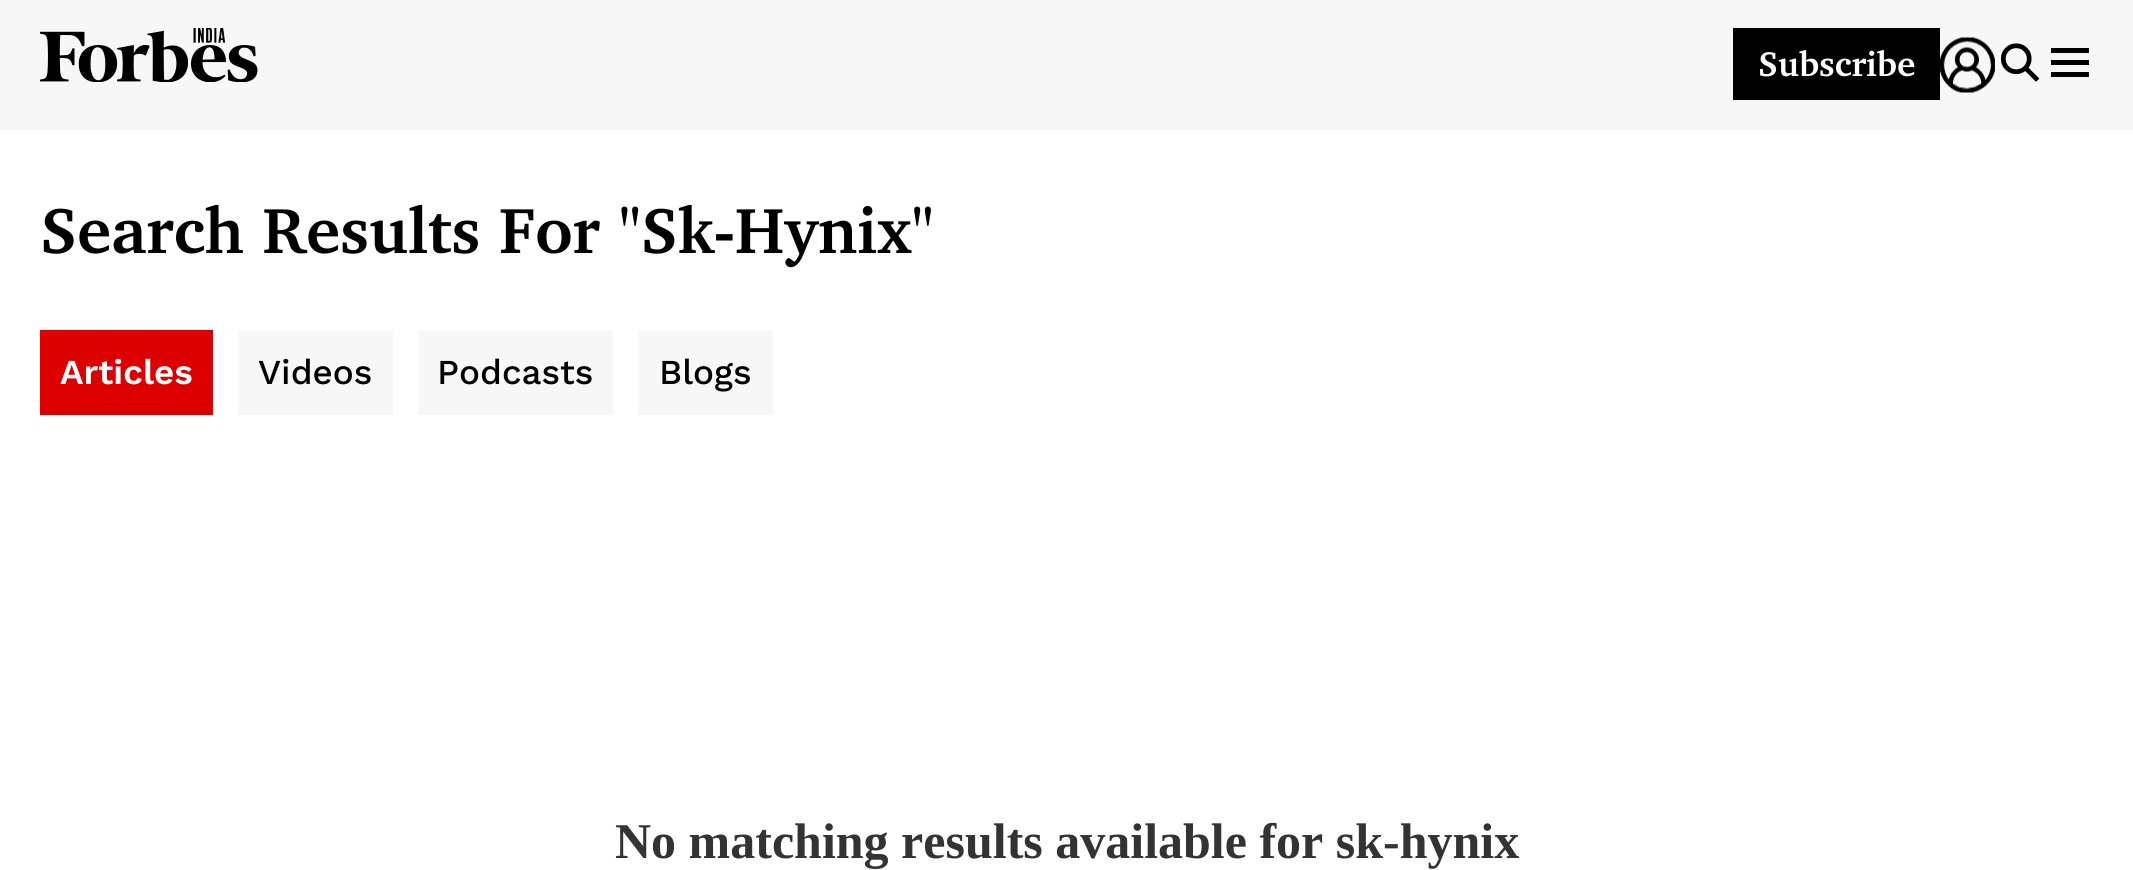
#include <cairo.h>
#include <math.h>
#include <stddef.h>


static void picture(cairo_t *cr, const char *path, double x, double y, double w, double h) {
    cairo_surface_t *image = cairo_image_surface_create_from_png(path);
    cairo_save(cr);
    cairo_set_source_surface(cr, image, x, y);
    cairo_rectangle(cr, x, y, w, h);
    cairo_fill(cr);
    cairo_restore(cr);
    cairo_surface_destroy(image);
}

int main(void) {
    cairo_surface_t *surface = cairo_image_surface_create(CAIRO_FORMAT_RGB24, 2133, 870);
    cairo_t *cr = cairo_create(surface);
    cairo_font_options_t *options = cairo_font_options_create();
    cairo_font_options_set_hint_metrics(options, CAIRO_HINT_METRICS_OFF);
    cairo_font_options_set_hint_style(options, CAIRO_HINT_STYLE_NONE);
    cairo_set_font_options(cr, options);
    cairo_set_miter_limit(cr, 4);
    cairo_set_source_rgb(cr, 1, 1, 1);
    cairo_paint(cr);
    cairo_set_source_rgb(cr, 0.965, 0.965, 0.965);
    cairo_rectangle(cr, 0, 0, 2133, 130);
    cairo_fill(cr);
    picture(cr, "img1.png", 40, 28, 218, 54);
    cairo_set_source_rgb(cr, 0, 0, 0);
    cairo_rectangle(cr, 1733, 28, 207, 72);
    cairo_fill(cr);
    cairo_select_font_face(cr, "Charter", CAIRO_FONT_SLANT_NORMAL, CAIRO_FONT_WEIGHT_BOLD);
    cairo_set_font_size(cr, 35);
    cairo_set_source_rgb(cr, 1, 1, 1);
    cairo_move_to(cr, 1758, 76);
    cairo_show_text(cr, "Subscribe");
    picture(cr, "img2.png", 1940, 37, 55, 56);
    picture(cr, "img3.png", 2000, 43, 40, 39);
    cairo_set_source_rgb(cr, 0, 0, 0);
    cairo_new_path(cr);
    cairo_move_to(cr, 2051, 48);
    cairo_line_to(cr, 2089, 48);
    cairo_line_to(cr, 2089, 53);
    cairo_line_to(cr, 2051, 53);
    cairo_close_path(cr);
    cairo_move_to(cr, 2051, 60);
    cairo_line_to(cr, 2089, 60);
    cairo_line_to(cr, 2089, 65);
    cairo_line_to(cr, 2051, 65);
    cairo_close_path(cr);
    cairo_move_to(cr, 2051, 72);
    cairo_line_to(cr, 2089, 72);
    cairo_line_to(cr, 2089, 77);
    cairo_line_to(cr, 2051, 77);
    cairo_close_path(cr);
    cairo_fill(cr);
    cairo_set_font_size(cr, 65);
    cairo_move_to(cr, 40, 253);
    cairo_show_text(cr, "Search Results For \"Sk-Hynix\"");
    cairo_set_source_rgb(cr, 0.863, 0, 0);
    cairo_rectangle(cr, 40, 330, 173, 85);
    cairo_fill(cr);
    cairo_select_font_face(cr, "Work Sans SemiBold", CAIRO_FONT_SLANT_NORMAL, CAIRO_FONT_WEIGHT_NORMAL);
    cairo_set_font_size(cr, 35);
    cairo_set_source_rgb(cr, 1, 1, 1);
    cairo_move_to(cr, 60, 384);
    cairo_show_text(cr, "Articles");
    cairo_set_source_rgb(cr, 0.965, 0.965, 0.965);
    cairo_rectangle(cr, 238, 330, 155, 85);
    cairo_fill(cr);
    cairo_select_font_face(cr, "Work Sans Medium", CAIRO_FONT_SLANT_NORMAL, CAIRO_FONT_WEIGHT_NORMAL);
    cairo_set_source_rgb(cr, 0, 0, 0);
    cairo_move_to(cr, 258, 384);
    cairo_show_text(cr, "Videos");
    cairo_set_source_rgb(cr, 0.965, 0.965, 0.965);
    cairo_rectangle(cr, 418, 330, 195, 85);
    cairo_fill(cr);
    cairo_set_source_rgb(cr, 0, 0, 0);
    cairo_move_to(cr, 437, 384);
    cairo_show_text(cr, "Podcasts");
    cairo_set_source_rgb(cr, 0.965, 0.965, 0.965);
    cairo_rectangle(cr, 638, 330, 135, 85);
    cairo_fill(cr);
    cairo_set_source_rgb(cr, 0, 0, 0);
    cairo_move_to(cr, 659, 384);
    cairo_show_text(cr, "Blogs");
    cairo_select_font_face(cr, "Liberation Serif", CAIRO_FONT_SLANT_NORMAL, CAIRO_FONT_WEIGHT_BOLD);
    cairo_set_font_size(cr, 50);
    cairo_set_source_rgb(cr, 0.2, 0.2, 0.2);
    cairo_move_to(cr, 615, 858);
    cairo_show_text(cr, "No matching results available for sk-hynix");
    cairo_surface_write_to_png(surface, "page.png");
    cairo_font_options_destroy(options);
    cairo_destroy(cr);
    cairo_surface_destroy(surface);
    return 0;
}
